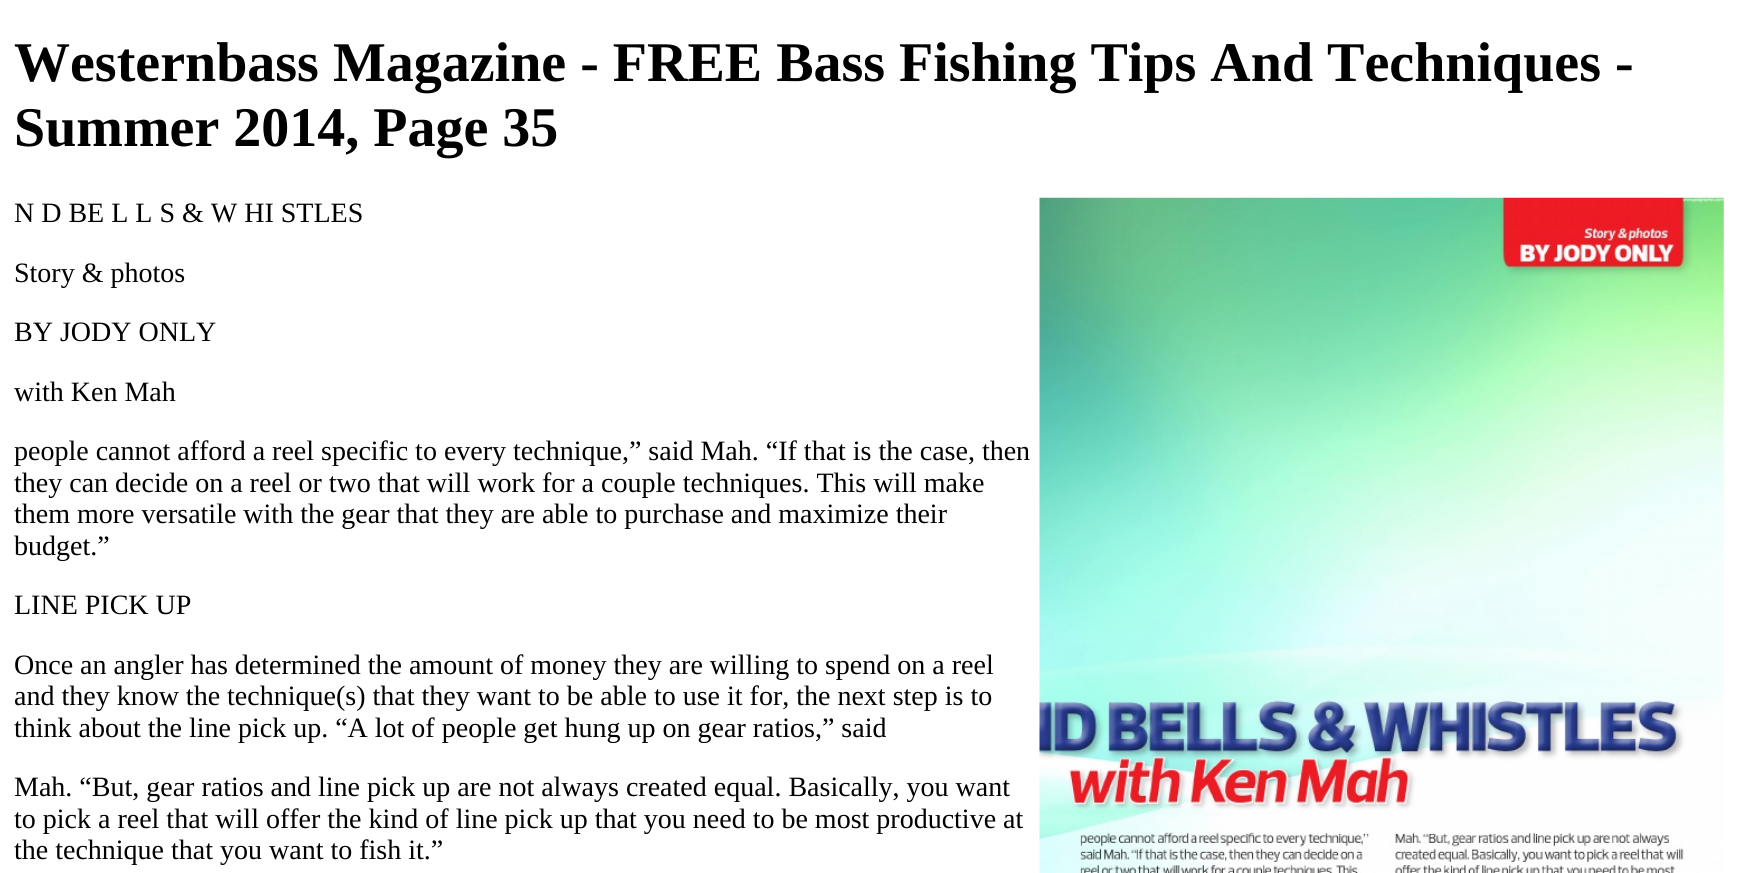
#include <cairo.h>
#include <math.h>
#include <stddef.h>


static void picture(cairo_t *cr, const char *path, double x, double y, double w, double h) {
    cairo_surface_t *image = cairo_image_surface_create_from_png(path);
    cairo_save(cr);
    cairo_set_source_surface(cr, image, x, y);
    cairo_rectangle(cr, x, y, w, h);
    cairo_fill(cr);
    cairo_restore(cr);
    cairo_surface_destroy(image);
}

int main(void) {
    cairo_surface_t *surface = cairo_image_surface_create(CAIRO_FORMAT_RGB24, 1737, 873);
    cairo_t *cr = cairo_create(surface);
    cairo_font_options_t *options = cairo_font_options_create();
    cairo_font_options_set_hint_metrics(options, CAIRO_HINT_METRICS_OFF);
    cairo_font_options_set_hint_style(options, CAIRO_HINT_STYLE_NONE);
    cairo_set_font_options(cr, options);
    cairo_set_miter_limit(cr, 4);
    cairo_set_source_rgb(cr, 1, 1, 1);
    cairo_paint(cr);
    cairo_select_font_face(cr, "Liberation Serif", CAIRO_FONT_SLANT_NORMAL, CAIRO_FONT_WEIGHT_BOLD);
    cairo_set_font_size(cr, 56);
    cairo_set_source_rgb(cr, 0, 0, 0);
    cairo_move_to(cr, 14, 81);
    cairo_show_text(cr, "Westernbass Magazine - FREE Bass Fishing Tips And Techniques -");
    cairo_move_to(cr, 14, 146);
    cairo_show_text(cr, "Summer 2014, Page 35");
    cairo_select_font_face(cr, "Liberation Serif", CAIRO_FONT_SLANT_NORMAL, CAIRO_FONT_WEIGHT_NORMAL);
    cairo_set_font_size(cr, 28);
    cairo_move_to(cr, 14, 222);
    cairo_show_text(cr, "N D BE L L S & W HI STLES");
    picture(cr, "img1.png", 1039, 197, 685, 676);
    cairo_move_to(cr, 14, 282);
    cairo_show_text(cr, "Story & photos");
    cairo_move_to(cr, 14, 341);
    cairo_show_text(cr, "BY JODY ONLY");
    cairo_move_to(cr, 14, 401);
    cairo_show_text(cr, "with Ken Mah");
    cairo_move_to(cr, 14, 460);
    cairo_show_text(cr, "people cannot afford a reel specific to every technique,” said Mah. “If that is the case, then");
    cairo_move_to(cr, 14, 492);
    cairo_show_text(cr, "they can decide on a reel or two that will work for a couple techniques. This will make");
    cairo_move_to(cr, 14, 523);
    cairo_show_text(cr, "them more versatile with the gear that they are able to purchase and maximize their");
    cairo_move_to(cr, 14, 555);
    cairo_show_text(cr, "budget.”");
    cairo_move_to(cr, 14, 614);
    cairo_show_text(cr, "LINE PICK UP");
    cairo_move_to(cr, 14, 674);
    cairo_show_text(cr, "Once an angler has determined the amount of money they are willing to spend on a reel");
    cairo_move_to(cr, 14, 705);
    cairo_show_text(cr, "and they know the technique(s) that they want to be able to use it for, the next step is to");
    cairo_move_to(cr, 14, 737);
    cairo_show_text(cr, "think about the line pick up. “A lot of people get hung up on gear ratios,” said");
    cairo_move_to(cr, 14, 796);
    cairo_show_text(cr, "Mah. “But, gear ratios and line pick up are not always created equal. Basically, you want");
    cairo_move_to(cr, 14, 828);
    cairo_show_text(cr, "to pick a reel that will offer the kind of line pick up that you need to be most productive at");
    cairo_move_to(cr, 14, 859);
    cairo_show_text(cr, "the technique that you want to fish it.”");
    cairo_surface_write_to_png(surface, "page.png");
    cairo_font_options_destroy(options);
    cairo_destroy(cr);
    cairo_surface_destroy(surface);
    return 0;
}
